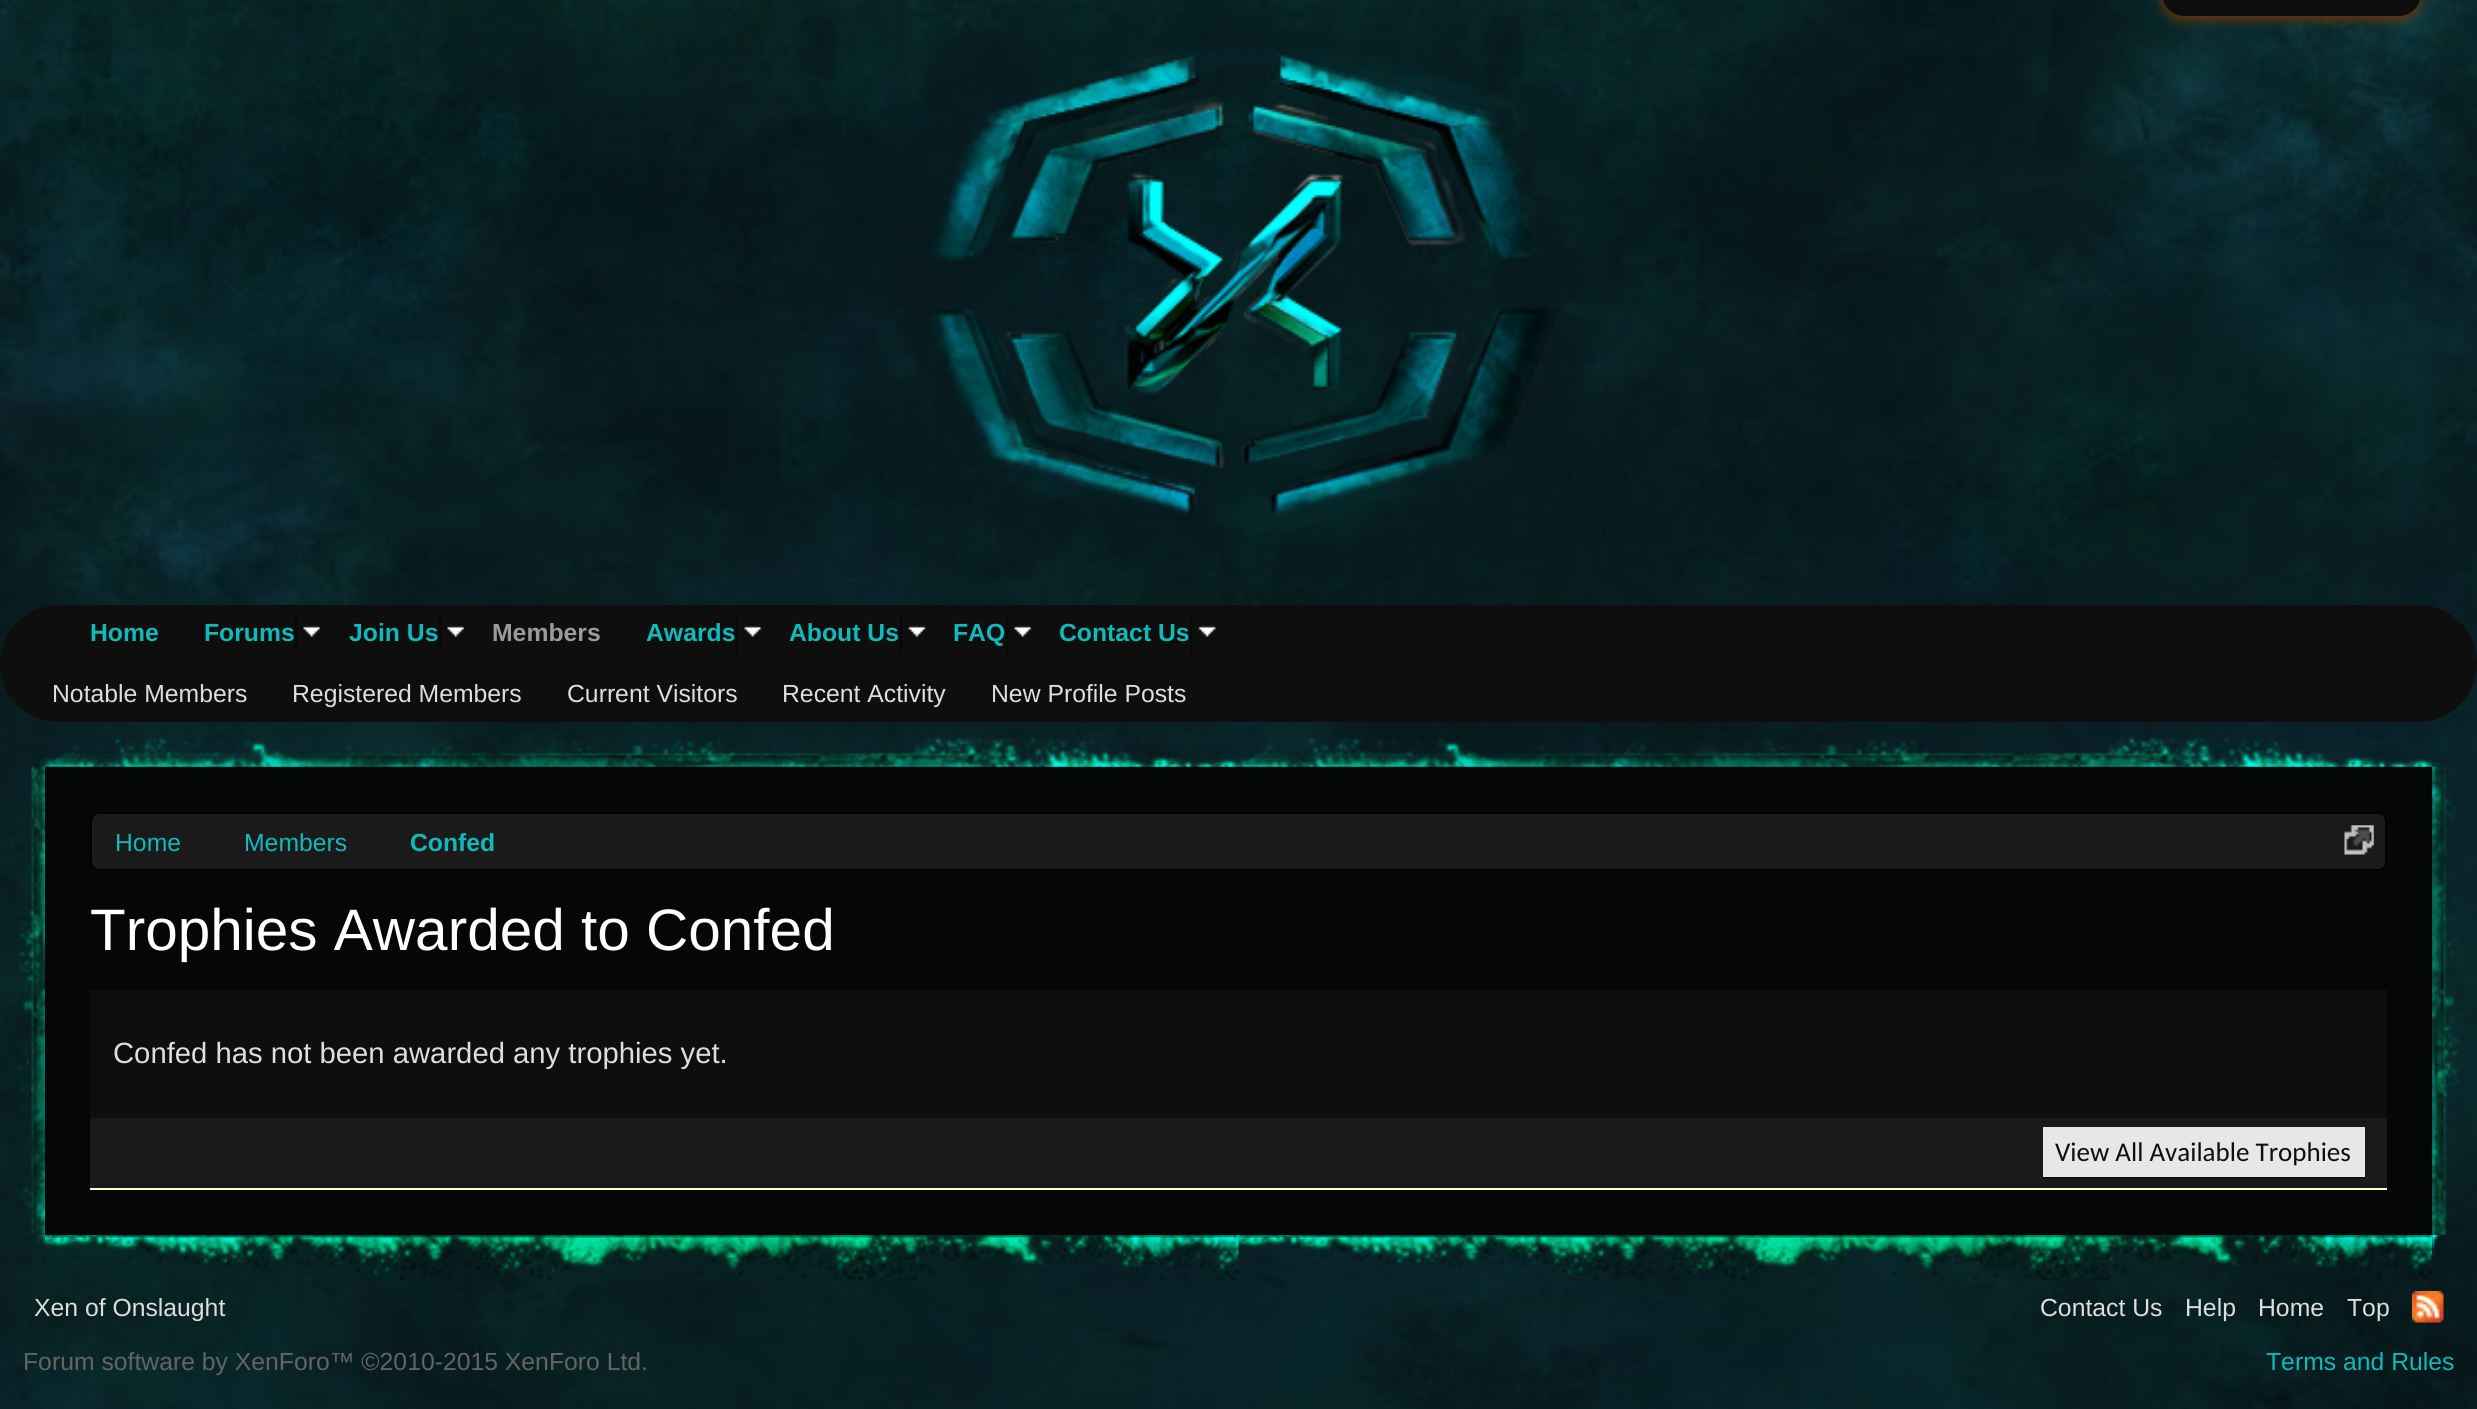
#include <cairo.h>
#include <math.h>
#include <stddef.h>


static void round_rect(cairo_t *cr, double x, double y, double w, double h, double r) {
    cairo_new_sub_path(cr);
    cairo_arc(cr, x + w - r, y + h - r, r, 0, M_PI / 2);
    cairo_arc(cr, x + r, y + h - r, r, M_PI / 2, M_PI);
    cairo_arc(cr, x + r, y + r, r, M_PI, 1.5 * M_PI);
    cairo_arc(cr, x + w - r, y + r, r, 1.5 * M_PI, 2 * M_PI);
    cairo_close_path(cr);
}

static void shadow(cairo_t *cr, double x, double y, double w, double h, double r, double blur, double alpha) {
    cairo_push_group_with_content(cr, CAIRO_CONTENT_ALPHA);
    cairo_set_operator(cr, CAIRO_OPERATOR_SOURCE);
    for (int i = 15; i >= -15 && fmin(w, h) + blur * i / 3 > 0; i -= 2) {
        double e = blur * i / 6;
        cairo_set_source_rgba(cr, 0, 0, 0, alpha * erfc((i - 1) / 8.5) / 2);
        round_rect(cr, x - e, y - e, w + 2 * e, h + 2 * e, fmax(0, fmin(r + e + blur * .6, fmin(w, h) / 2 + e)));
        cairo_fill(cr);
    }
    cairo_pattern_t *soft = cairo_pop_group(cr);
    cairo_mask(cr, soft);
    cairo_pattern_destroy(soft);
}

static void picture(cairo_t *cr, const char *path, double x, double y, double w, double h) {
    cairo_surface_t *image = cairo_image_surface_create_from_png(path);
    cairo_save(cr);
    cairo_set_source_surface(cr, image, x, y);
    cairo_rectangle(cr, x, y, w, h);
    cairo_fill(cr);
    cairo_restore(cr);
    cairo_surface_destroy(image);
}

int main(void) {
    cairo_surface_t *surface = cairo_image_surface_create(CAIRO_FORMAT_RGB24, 2477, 1409);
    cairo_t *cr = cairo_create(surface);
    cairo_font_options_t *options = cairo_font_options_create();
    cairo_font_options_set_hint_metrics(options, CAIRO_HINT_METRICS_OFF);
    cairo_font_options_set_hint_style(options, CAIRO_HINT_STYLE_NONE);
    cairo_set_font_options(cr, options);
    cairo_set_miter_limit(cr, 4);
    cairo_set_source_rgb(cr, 1, 1, 1);
    cairo_paint(cr);
    picture(cr, "img1.png", 0, 0, 2477, 1409);
    cairo_set_source_rgb(cr, 0.416, 0.212, 0.043);
    shadow(cr, 2162, -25, 259, 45, 22.5, 5.5, 1);
    cairo_set_source_rgb(cr, 0.055, 0.055, 0.055);
    cairo_new_path(cr);
    cairo_move_to(cr, 2162, -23);
    cairo_line_to(cr, 2421, -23);
    cairo_line_to(cr, 2421, -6.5);
    cairo_curve_to(cr, 2421, 6, 2411, 16, 2398.5, 16);
    cairo_line_to(cr, 2184.5, 16);
    cairo_curve_to(cr, 2172, 16, 2162, 6, 2162, -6.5);
    cairo_close_path(cr);
    cairo_fill(cr);
    picture(cr, "img2.png", 833, 0, 776, 582);
    round_rect(cr, 0, 605, 2477, 117, 58.5);
    cairo_fill(cr);
    cairo_select_font_face(cr, "Liberation Sans", CAIRO_FONT_SLANT_NORMAL, CAIRO_FONT_WEIGHT_BOLD);
    cairo_set_font_size(cr, 24.75);
    cairo_set_source_rgb(cr, 0.604, 0.604, 0.604);
    cairo_move_to(cr, 492, 641);
    cairo_show_text(cr, "Members");
    cairo_select_font_face(cr, "Liberation Sans", CAIRO_FONT_SLANT_NORMAL, CAIRO_FONT_WEIGHT_NORMAL);
    cairo_set_source_rgb(cr, 0.875, 0.867, 0.867);
    cairo_move_to(cr, 52, 702);
    cairo_show_text(cr, "Notable Members");
    cairo_move_to(cr, 292, 702);
    cairo_show_text(cr, "Registered Members");
    cairo_move_to(cr, 567, 702);
    cairo_show_text(cr, "Current Visitors");
    cairo_move_to(cr, 782, 702);
    cairo_show_text(cr, "Recent Activity");
    cairo_move_to(cr, 991, 702);
    cairo_show_text(cr, "New Profile Posts");
    cairo_select_font_face(cr, "Liberation Sans", CAIRO_FONT_SLANT_NORMAL, CAIRO_FONT_WEIGHT_BOLD);
    cairo_set_source_rgb(cr, 0.063, 0.729, 0.729);
    cairo_move_to(cr, 90, 641);
    cairo_show_text(cr, "Home");
    cairo_move_to(cr, 204, 641);
    cairo_show_text(cr, "Forums");
    picture(cr, "img3.png", 295, 618, 26, 35);
    cairo_move_to(cr, 349, 641);
    cairo_show_text(cr, "Join Us");
    picture(cr, "img4.png", 439, 618, 26, 35);
    cairo_move_to(cr, 646, 641);
    cairo_show_text(cr, "Awards");
    picture(cr, "img3.png", 736, 618, 26, 35);
    cairo_move_to(cr, 789, 641);
    cairo_show_text(cr, "About Us");
    picture(cr, "img5.png", 900, 618, 26, 35);
    cairo_move_to(cr, 953, 641);
    cairo_show_text(cr, "FAQ");
    picture(cr, "img3.png", 1006, 618, 26, 35);
    cairo_move_to(cr, 1059, 641);
    cairo_show_text(cr, "Contact Us");
    picture(cr, "img6.png", 1190, 618, 26, 35);
    picture(cr, "img7.png", 14, 736, 2449, 544);
    cairo_set_source_rgb(cr, 0.02, 0.027, 0.027);
    cairo_rectangle(cr, 45, 767, 2387, 468);
    cairo_fill(cr);
    cairo_set_source_rgb(cr, 0.102, 0.102, 0.102);
    round_rect(cr, 91, 813, 2295, 57, 8);
    cairo_fill_preserve(cr);
    cairo_set_source_rgb(cr, 0, 0, 0);
    cairo_stroke(cr);
    cairo_select_font_face(cr, "Liberation Sans", CAIRO_FONT_SLANT_NORMAL, CAIRO_FONT_WEIGHT_NORMAL);
    cairo_set_source_rgb(cr, 0.063, 0.729, 0.729);
    cairo_move_to(cr, 115, 851);
    cairo_show_text(cr, "Home");
    cairo_move_to(cr, 244, 851);
    cairo_show_text(cr, "Members");
    cairo_select_font_face(cr, "Liberation Sans", CAIRO_FONT_SLANT_NORMAL, CAIRO_FONT_WEIGHT_BOLD);
    cairo_move_to(cr, 410, 851);
    cairo_show_text(cr, "Confed");
    picture(cr, "img8.png", 2344, 825, 30, 30);
    cairo_select_font_face(cr, "Liberation Sans", CAIRO_FONT_SLANT_NORMAL, CAIRO_FONT_WEIGHT_NORMAL);
    cairo_set_font_size(cr, 58.5);
    cairo_set_source_rgb(cr, 1, 1, 1);
    cairo_move_to(cr, 90, 950);
    cairo_show_text(cr, "Trophies Awarded to Confed");
    cairo_set_source_rgb(cr, 0.055, 0.055, 0.055);
    cairo_rectangle(cr, 90, 990, 2297, 128);
    cairo_fill(cr);
    cairo_set_font_size(cr, 29.25);
    cairo_set_source_rgb(cr, 0.875, 0.867, 0.867);
    cairo_move_to(cr, 113, 1063);
    cairo_show_text(cr, "Confed has not been awarded any trophies yet.");
    cairo_set_source_rgb(cr, 0.098, 0.098, 0.098);
    cairo_rectangle(cr, 90, 1118, 2297, 70);
    cairo_fill(cr);
    cairo_set_source_rgb(cr, 1, 1, 0.784);
    cairo_rectangle(cr, 90, 1188, 2297, 2);
    cairo_fill(cr);
    cairo_set_source_rgb(cr, 0.906, 0.906, 0.906);
    cairo_rectangle(cr, 2043, 1127, 322, 50);
    cairo_fill(cr);
    cairo_set_source_rgb(cr, 0.055, 0.055, 0.055);
    cairo_rectangle(cr, 2043, 1177, 322, 2);
    cairo_fill(cr);
    cairo_select_font_face(cr, "Carlito", CAIRO_FONT_SLANT_NORMAL, CAIRO_FONT_WEIGHT_NORMAL);
    cairo_set_font_size(cr, 27);
    cairo_move_to(cr, 2055, 1161);
    cairo_show_text(cr, "View All Available Trophies");
    cairo_select_font_face(cr, "Liberation Sans", CAIRO_FONT_SLANT_NORMAL, CAIRO_FONT_WEIGHT_NORMAL);
    cairo_set_font_size(cr, 24.75);
    cairo_set_source_rgb(cr, 0.875, 0.867, 0.867);
    cairo_move_to(cr, 34, 1316);
    cairo_show_text(cr, "Xen of Onslaught");
    cairo_move_to(cr, 2040, 1316);
    cairo_show_text(cr, "Contact Us");
    cairo_move_to(cr, 2185, 1316);
    cairo_show_text(cr, "Help");
    cairo_move_to(cr, 2258, 1316);
    cairo_show_text(cr, "Home");
    cairo_move_to(cr, 2347, 1316);
    cairo_show_text(cr, "Top");
    picture(cr, "img9.png", 2412, 1291, 32, 32);
    cairo_set_source_rgb(cr, 0.392, 0.392, 0.392);
    cairo_move_to(cr, 23, 1370);
    cairo_show_text(cr, "Forum software by XenForo™ ©2010-2015 XenForo Ltd.");
    cairo_set_source_rgb(cr, 0.063, 0.729, 0.729);
    cairo_move_to(cr, 2266, 1370);
    cairo_show_text(cr, "Terms and Rules");
    cairo_surface_write_to_png(surface, "page.png");
    cairo_font_options_destroy(options);
    cairo_destroy(cr);
    cairo_surface_destroy(surface);
    return 0;
}
